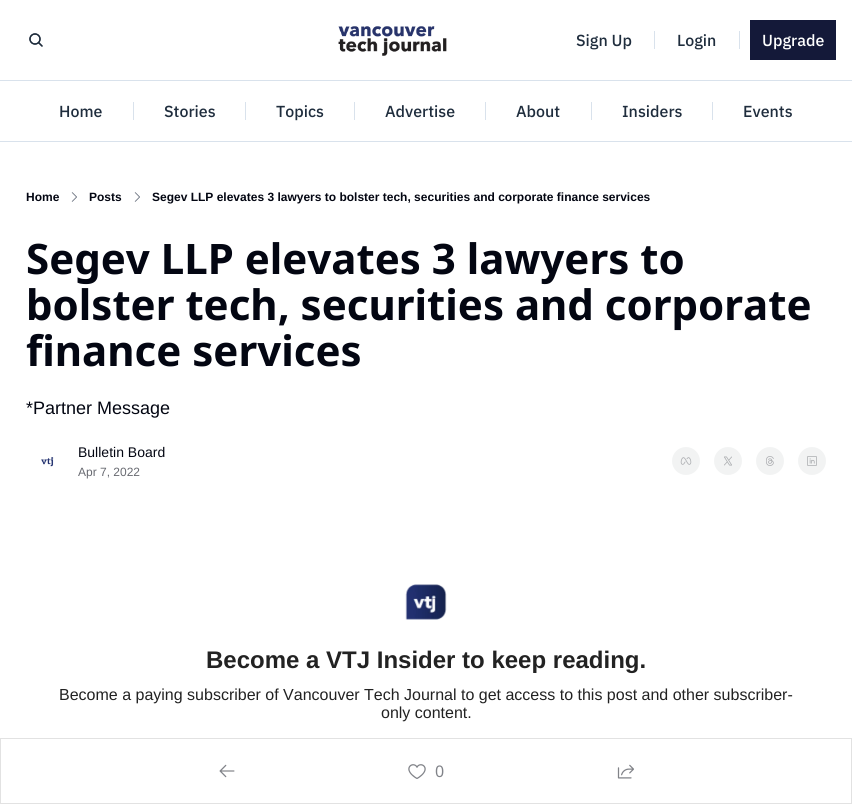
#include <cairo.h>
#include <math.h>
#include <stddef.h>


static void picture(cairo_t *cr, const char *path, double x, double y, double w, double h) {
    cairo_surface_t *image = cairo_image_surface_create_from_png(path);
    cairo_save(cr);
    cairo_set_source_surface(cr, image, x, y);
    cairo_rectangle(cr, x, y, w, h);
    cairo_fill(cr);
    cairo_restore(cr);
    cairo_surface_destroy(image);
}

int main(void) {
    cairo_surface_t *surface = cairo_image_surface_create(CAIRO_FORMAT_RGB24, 852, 804);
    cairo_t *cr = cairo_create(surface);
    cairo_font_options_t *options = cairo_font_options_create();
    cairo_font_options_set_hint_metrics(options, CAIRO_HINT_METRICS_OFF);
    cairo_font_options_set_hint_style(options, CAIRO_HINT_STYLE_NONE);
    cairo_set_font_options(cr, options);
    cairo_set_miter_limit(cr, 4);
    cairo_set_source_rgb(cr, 1, 1, 1);
    cairo_paint(cr);
    cairo_set_source_rgb(cr, 0.851, 0.886, 0.925);
    cairo_rectangle(cr, 0, 80, 852, 1);
    cairo_fill(cr);
    picture(cr, "img1.png", 29, 33, 14, 14);
    picture(cr, "img2.png", 338, 26, 109, 30);
    cairo_select_font_face(cr, "IBM Plex Sans Medium", CAIRO_FONT_SLANT_NORMAL, CAIRO_FONT_WEIGHT_NORMAL);
    cairo_set_font_size(cr, 16);
    cairo_set_source_rgb(cr, 0.122, 0.176, 0.239);
    cairo_move_to(cr, 576, 46);
    cairo_show_text(cr, "Sign Up");
    cairo_set_source_rgb(cr, 0.851, 0.886, 0.925);
    cairo_rectangle(cr, 654, 31, 1, 18);
    cairo_fill(cr);
    cairo_set_source_rgb(cr, 0.122, 0.176, 0.239);
    cairo_move_to(cr, 677, 46);
    cairo_show_text(cr, "Login");
    cairo_set_source_rgb(cr, 0.851, 0.886, 0.925);
    cairo_rectangle(cr, 739, 31, 1, 18);
    cairo_fill(cr);
    cairo_set_source_rgb(cr, 0.082, 0.098, 0.224);
    cairo_rectangle(cr, 750, 20, 86, 40);
    cairo_fill(cr);
    cairo_set_source_rgb(cr, 1, 1, 1);
    cairo_move_to(cr, 762, 46);
    cairo_show_text(cr, "Upgrade");
    cairo_set_source_rgb(cr, 0.851, 0.886, 0.925);
    cairo_rectangle(cr, 0, 141, 852, 1);
    cairo_fill(cr);
    cairo_set_source_rgb(cr, 0.122, 0.176, 0.239);
    cairo_move_to(cr, 59, 117);
    cairo_show_text(cr, "Home");
    cairo_set_source_rgb(cr, 0.851, 0.886, 0.925);
    cairo_rectangle(cr, 133, 102, 1, 18);
    cairo_fill(cr);
    cairo_set_source_rgb(cr, 0.122, 0.176, 0.239);
    cairo_move_to(cr, 164, 117);
    cairo_show_text(cr, "Stories");
    cairo_set_source_rgb(cr, 0.851, 0.886, 0.925);
    cairo_rectangle(cr, 245, 102, 1, 18);
    cairo_fill(cr);
    cairo_set_source_rgb(cr, 0.122, 0.176, 0.239);
    cairo_move_to(cr, 276, 117);
    cairo_show_text(cr, "Topics");
    cairo_set_source_rgb(cr, 0.851, 0.886, 0.925);
    cairo_rectangle(cr, 354, 102, 1, 18);
    cairo_fill(cr);
    cairo_set_source_rgb(cr, 0.122, 0.176, 0.239);
    cairo_move_to(cr, 385, 117);
    cairo_show_text(cr, "Advertise");
    cairo_set_source_rgb(cr, 0.851, 0.886, 0.925);
    cairo_rectangle(cr, 485, 102, 1, 18);
    cairo_fill(cr);
    cairo_set_source_rgb(cr, 0.122, 0.176, 0.239);
    cairo_move_to(cr, 516, 117);
    cairo_show_text(cr, "About");
    cairo_set_source_rgb(cr, 0.851, 0.886, 0.925);
    cairo_rectangle(cr, 591, 102, 1, 18);
    cairo_fill(cr);
    cairo_set_source_rgb(cr, 0.122, 0.176, 0.239);
    cairo_move_to(cr, 622, 117);
    cairo_show_text(cr, "Insiders");
    cairo_set_source_rgb(cr, 0.851, 0.886, 0.925);
    cairo_rectangle(cr, 712, 102, 1, 18);
    cairo_fill(cr);
    cairo_set_source_rgb(cr, 0.122, 0.176, 0.239);
    cairo_move_to(cr, 743, 117);
    cairo_show_text(cr, "Events");
    cairo_select_font_face(cr, "Liberation Sans", CAIRO_FONT_SLANT_NORMAL, CAIRO_FONT_WEIGHT_BOLD);
    cairo_set_font_size(cr, 12);
    cairo_set_source_rgb(cr, 0.012, 0.027, 0.071);
    cairo_move_to(cr, 26, 201);
    cairo_show_text(cr, "Home");
    picture(cr, "img3.png", 71, 192, 6, 10);
    cairo_move_to(cr, 89, 201);
    cairo_show_text(cr, "Posts");
    picture(cr, "img3.png", 134, 192, 6, 10);
    cairo_move_to(cr, 152, 201);
    cairo_show_text(cr, "Segev LLP elevates 3 lawyers to bolster tech, securities and corporate finance services");
    cairo_select_font_face(cr, "Noto Sans", CAIRO_FONT_SLANT_NORMAL, CAIRO_FONT_WEIGHT_BOLD);
    cairo_set_font_size(cr, 42);
    cairo_move_to(cr, 26, 274);
    cairo_show_text(cr, "Segev LLP elevates 3 lawyers to");
    cairo_move_to(cr, 26, 320);
    cairo_show_text(cr, "bolster tech, securities and corporate");
    cairo_move_to(cr, 26, 366);
    cairo_show_text(cr, "finance services");
    cairo_select_font_face(cr, "Liberation Sans", CAIRO_FONT_SLANT_NORMAL, CAIRO_FONT_WEIGHT_NORMAL);
    cairo_set_font_size(cr, 18);
    cairo_move_to(cr, 26, 414);
    cairo_show_text(cr, "*Partner Message");
    picture(cr, "img4.png", 41, 457, 13, 10);
    cairo_set_font_size(cr, 14);
    cairo_move_to(cr, 78, 457);
    cairo_show_text(cr, "Bulletin Board");
    cairo_set_font_size(cr, 12);
    cairo_set_source_rgb(cr, 0.408, 0.416, 0.443);
    cairo_move_to(cr, 78, 476);
    cairo_show_text(cr, "Apr 7, 2022");
    cairo_set_source_rgb(cr, 0.949, 0.953, 0.953);
    cairo_new_path(cr);
    cairo_arc(cr, 686, 461, 14, 0, 2 * M_PI);
    cairo_fill(cr);
    picture(cr, "img5.png", 680, 457, 12, 8);
    cairo_arc(cr, 728, 461, 14, 0, 2 * M_PI);
    cairo_fill(cr);
    picture(cr, "img6.png", 724, 456, 8, 10);
    cairo_arc(cr, 770, 461, 14, 0, 2 * M_PI);
    cairo_fill(cr);
    picture(cr, "img7.png", 766, 456, 8, 10);
    cairo_arc(cr, 812, 461, 14, 0, 2 * M_PI);
    cairo_fill(cr);
    picture(cr, "img8.png", 807, 456, 10, 10);
    picture(cr, "img9.png", 405, 584, 42, 36);
    cairo_select_font_face(cr, "Liberation Sans", CAIRO_FONT_SLANT_NORMAL, CAIRO_FONT_WEIGHT_BOLD);
    cairo_set_font_size(cr, 24);
    cairo_set_source_rgb(cr, 0.133, 0.133, 0.133);
    cairo_move_to(cr, 206, 668);
    cairo_show_text(cr, "Become a VTJ Insider to keep reading.");
    cairo_select_font_face(cr, "Liberation Sans", CAIRO_FONT_SLANT_NORMAL, CAIRO_FONT_WEIGHT_NORMAL);
    cairo_set_font_size(cr, 16);
    cairo_move_to(cr, 59, 700);
    cairo_show_text(cr, "Become a paying subscriber of Vancouver Tech Journal to get access to this post and other subscriber-");
    cairo_move_to(cr, 381, 718);
    cairo_show_text(cr, "only content.");
    cairo_rectangle(cr, 0.5, 738.5, 851, 65);
    cairo_set_source_rgb(cr, 0.886, 0.886, 0.886);
    cairo_set_line_width(cr, 1);
    cairo_stroke(cr);
    picture(cr, "img10.png", 219, 764, 16, 14);
    picture(cr, "img11.png", 408, 764, 18, 15);
    cairo_select_font_face(cr, "Noto Sans", CAIRO_FONT_SLANT_NORMAL, CAIRO_FONT_WEIGHT_NORMAL);
    cairo_set_source_rgb(cr, 0.506, 0.514, 0.537);
    cairo_move_to(cr, 435, 777);
    cairo_show_text(cr, "0");
    picture(cr, "img12.png", 617, 764, 17, 15);
    cairo_surface_write_to_png(surface, "page.png");
    cairo_font_options_destroy(options);
    cairo_destroy(cr);
    cairo_surface_destroy(surface);
    return 0;
}
